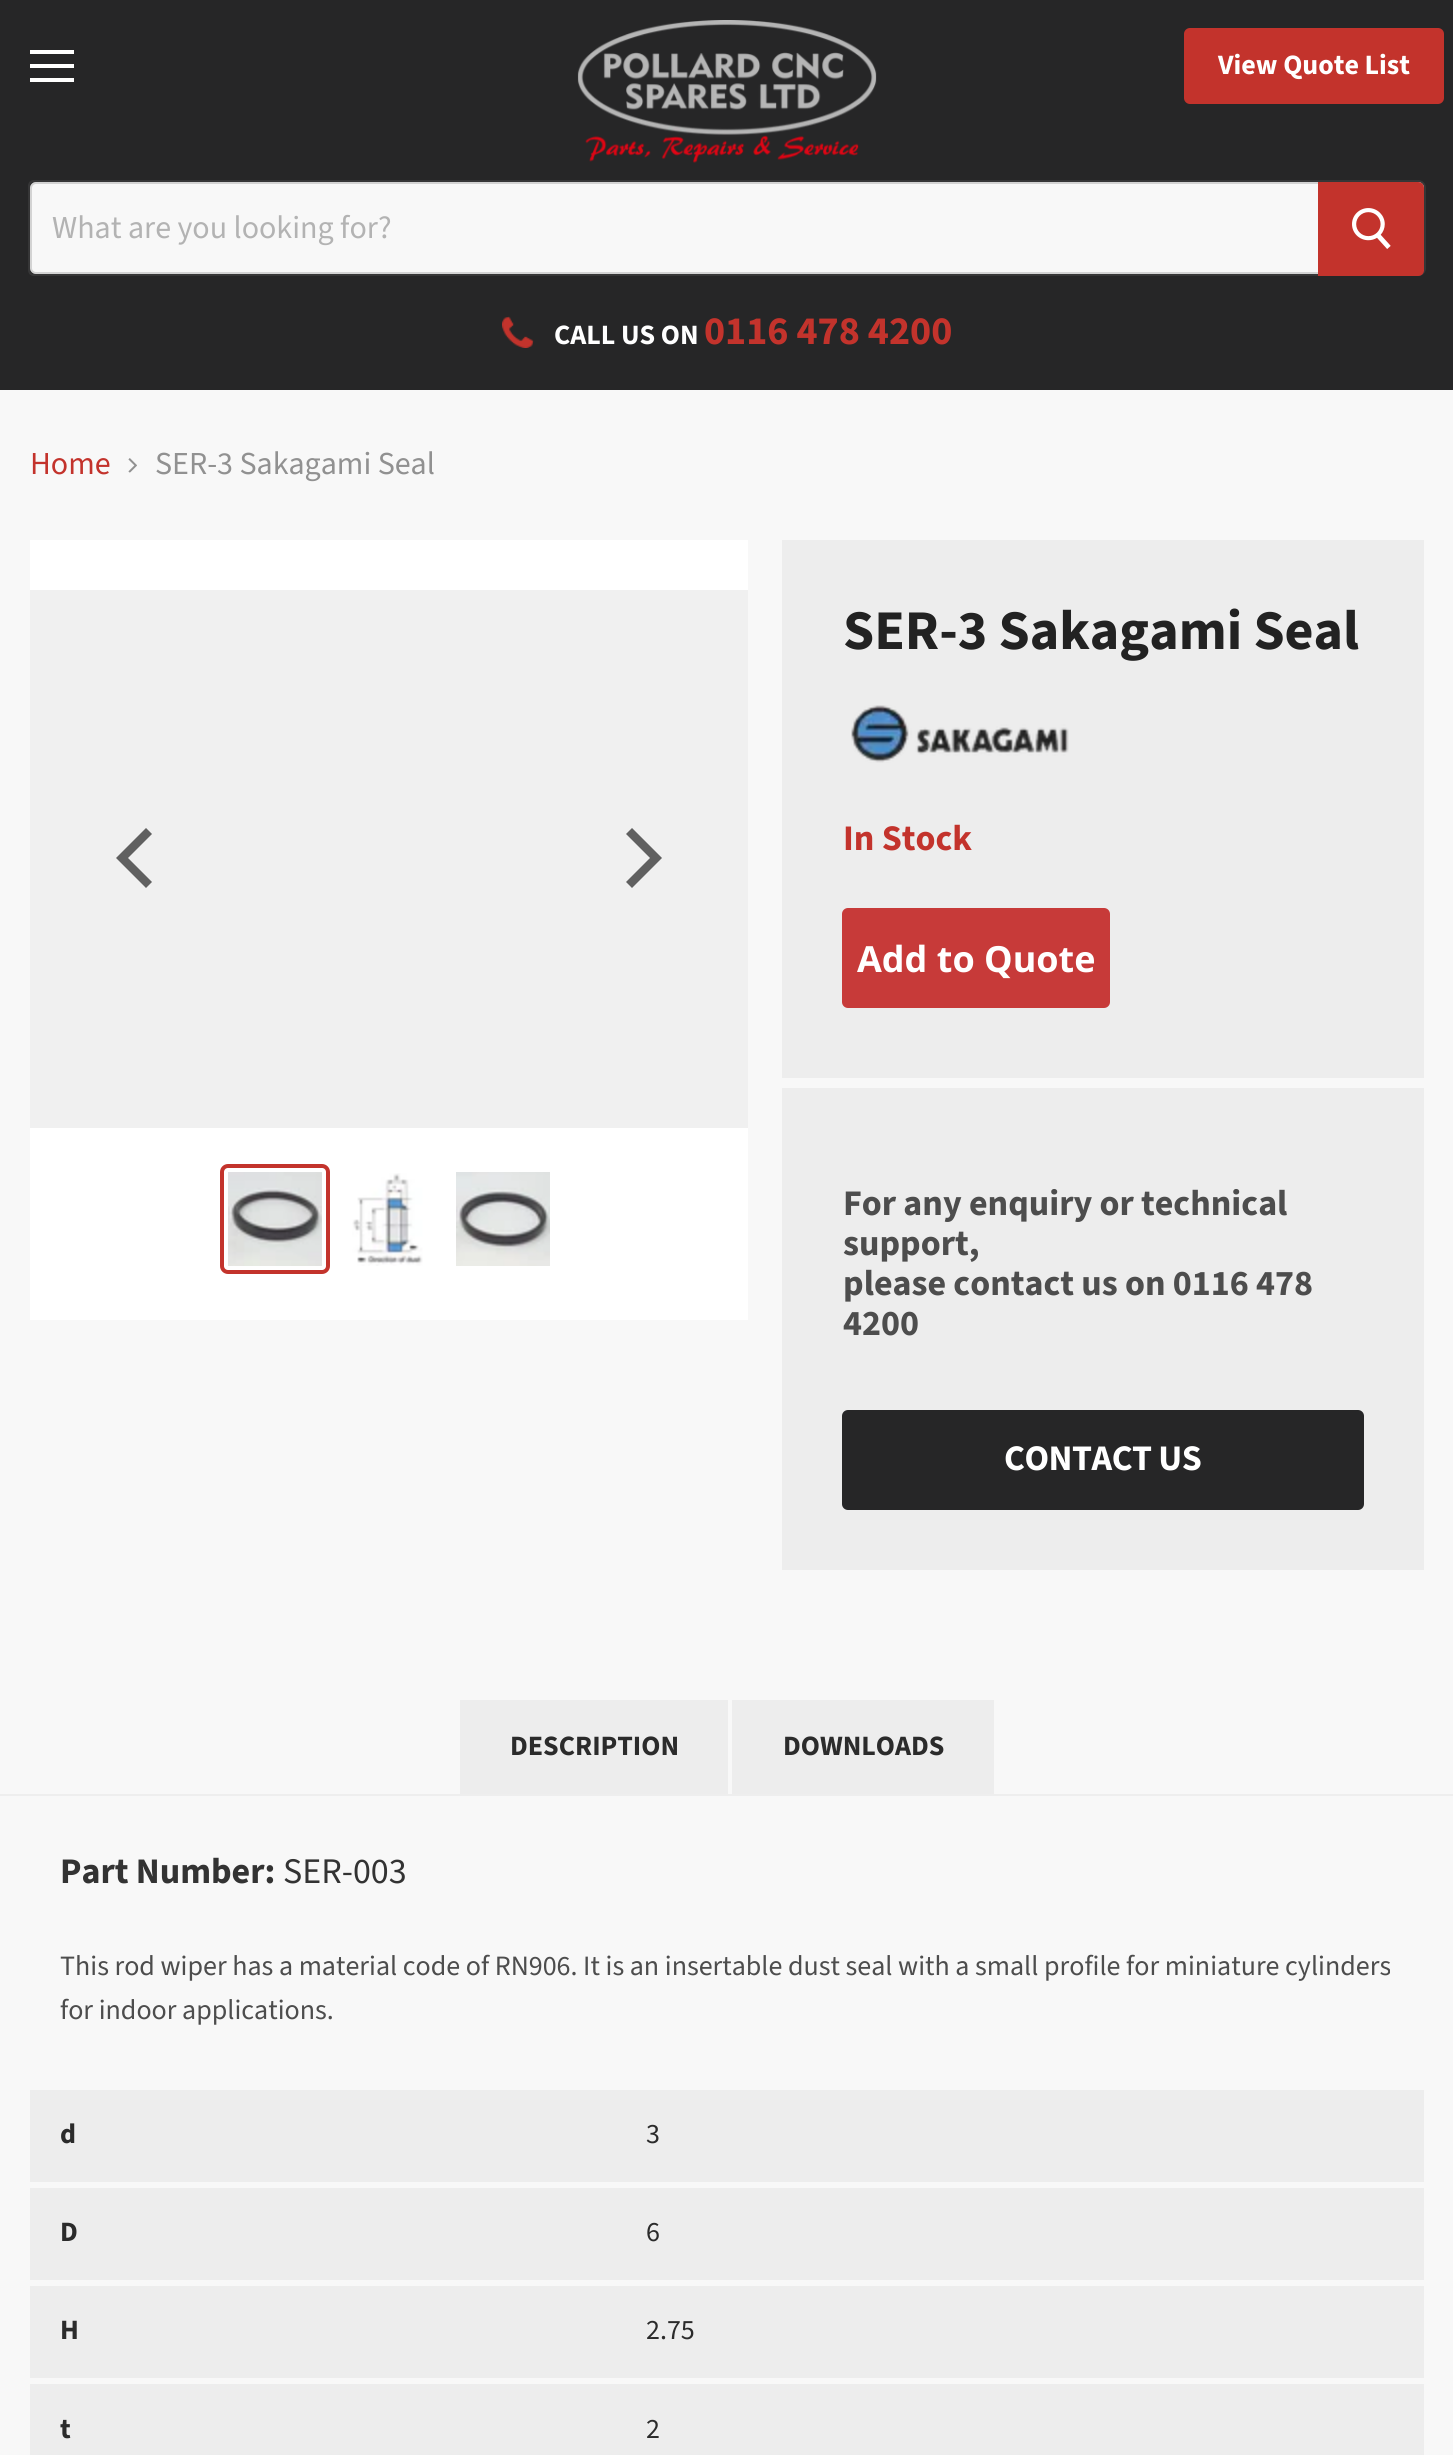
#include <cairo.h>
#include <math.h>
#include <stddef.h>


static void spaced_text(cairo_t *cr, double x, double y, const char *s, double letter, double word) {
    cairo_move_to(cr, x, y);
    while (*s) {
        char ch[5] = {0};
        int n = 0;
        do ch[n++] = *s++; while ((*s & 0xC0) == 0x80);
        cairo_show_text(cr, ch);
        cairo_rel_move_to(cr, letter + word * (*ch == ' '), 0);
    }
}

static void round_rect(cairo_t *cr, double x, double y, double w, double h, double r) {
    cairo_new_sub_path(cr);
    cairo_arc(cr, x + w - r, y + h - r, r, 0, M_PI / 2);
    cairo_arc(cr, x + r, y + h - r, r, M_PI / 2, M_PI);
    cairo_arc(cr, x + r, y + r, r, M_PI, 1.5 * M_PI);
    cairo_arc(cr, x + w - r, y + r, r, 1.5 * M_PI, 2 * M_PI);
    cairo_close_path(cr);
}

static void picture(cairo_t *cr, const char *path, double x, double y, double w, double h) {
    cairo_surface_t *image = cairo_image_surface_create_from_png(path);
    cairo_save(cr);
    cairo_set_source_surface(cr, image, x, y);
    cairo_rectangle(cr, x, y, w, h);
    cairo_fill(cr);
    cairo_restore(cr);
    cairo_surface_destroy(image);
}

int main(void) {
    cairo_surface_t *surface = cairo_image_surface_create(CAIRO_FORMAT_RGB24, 1453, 2455);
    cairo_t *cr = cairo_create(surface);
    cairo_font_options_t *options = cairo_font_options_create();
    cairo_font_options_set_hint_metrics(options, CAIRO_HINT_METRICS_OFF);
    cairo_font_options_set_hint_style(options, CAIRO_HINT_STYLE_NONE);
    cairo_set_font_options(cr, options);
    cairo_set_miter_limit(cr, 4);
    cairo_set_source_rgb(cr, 0.969, 0.969, 0.969);
    cairo_paint(cr);
    cairo_set_source_rgb(cr, 0.149, 0.149, 0.153);
    cairo_rectangle(cr, 0, 0, 1453, 390);
    cairo_fill(cr);
    cairo_set_source_rgb(cr, 1, 1, 1);
    cairo_rectangle(cr, 30, 50, 44, 4);
    cairo_fill(cr);
    cairo_rectangle(cr, 30, 64, 44, 4);
    cairo_fill(cr);
    cairo_rectangle(cr, 30, 78, 44, 4);
    cairo_fill(cr);
    cairo_set_source_rgb(cr, 0.765, 0.2, 0.173);
    round_rect(cr, 1185, 29, 258, 74, 5);
    cairo_fill_preserve(cr);
    cairo_stroke(cr);
    cairo_select_font_face(cr, "Source Sans Pro", CAIRO_FONT_SLANT_NORMAL, CAIRO_FONT_WEIGHT_BOLD);
    cairo_set_font_size(cr, 28);
    cairo_set_source_rgb(cr, 1, 1, 1);
    cairo_move_to(cr, 1218, 74);
    cairo_show_text(cr, "View Quote List");
    picture(cr, "img1.png", 577, 20, 300, 143);
    cairo_new_path(cr);
    cairo_move_to(cr, 34, 181);
    cairo_line_to(cr, 1418, 181);
    cairo_curve_to(cr, 1422, 181, 1425, 184, 1425, 188);
    cairo_line_to(cr, 1425, 268);
    cairo_curve_to(cr, 1425, 272, 1422, 275, 1418, 275);
    cairo_line_to(cr, 34, 275);
    cairo_curve_to(cr, 31, 275, 29, 273, 29, 270);
    cairo_line_to(cr, 29, 186);
    cairo_curve_to(cr, 29, 183, 31, 181, 34, 181);
    cairo_close_path(cr);
    cairo_set_source_rgba(cr, 0.482, 0.482, 0.482, 0.2);
    cairo_stroke(cr);
    cairo_set_source_rgb(cr, 0.969, 0.969, 0.969);
    round_rect(cr, 30, 182, 1394, 92, 6);
    cairo_fill(cr);
    round_rect(cr, 31, 183, 1392, 90, 5);
    cairo_set_source_rgba(cr, 0.486, 0.486, 0.486, 0.3);
    cairo_stroke(cr);
    cairo_select_font_face(cr, "Source Sans Pro", CAIRO_FONT_SLANT_NORMAL, CAIRO_FONT_WEIGHT_NORMAL);
    cairo_set_font_size(cr, 32);
    cairo_set_source_rgb(cr, 0.702, 0.702, 0.702);
    cairo_move_to(cr, 52, 238);
    cairo_show_text(cr, "What are you looking for?");
    cairo_set_source_rgb(cr, 0.765, 0.2, 0.173);
    cairo_new_path(cr);
    cairo_move_to(cr, 1319, 183);
    cairo_line_to(cr, 1418, 183);
    cairo_curve_to(cr, 1421, 183, 1423, 185, 1423, 188);
    cairo_line_to(cr, 1423, 270);
    cairo_curve_to(cr, 1423, 273, 1421, 275, 1418, 275);
    cairo_line_to(cr, 1319, 275);
    cairo_close_path(cr);
    cairo_fill_preserve(cr);
    cairo_stroke(cr);
    picture(cr, "img2.png", 1352, 208, 39, 41);
    picture(cr, "img3.png", 502, 316, 32, 32);
    cairo_select_font_face(cr, "Source Sans Pro", CAIRO_FONT_SLANT_NORMAL, CAIRO_FONT_WEIGHT_BOLD);
    cairo_set_font_size(cr, 28);
    cairo_set_source_rgb(cr, 1, 1, 1);
    cairo_move_to(cr, 554, 344);
    cairo_show_text(cr, "CALL US ON");
    cairo_set_font_size(cr, 40);
    cairo_set_source_rgb(cr, 0.765, 0.2, 0.173);
    cairo_move_to(cr, 704, 344);
    cairo_show_text(cr, "0116 478 4200");
    cairo_select_font_face(cr, "Source Sans Pro", CAIRO_FONT_SLANT_NORMAL, CAIRO_FONT_WEIGHT_NORMAL);
    cairo_set_font_size(cr, 32);
    cairo_move_to(cr, 30, 474);
    cairo_show_text(cr, "Home");
    picture(cr, "img4.png", 128, 458, 9, 15);
    cairo_set_source_rgb(cr, 0.569, 0.569, 0.569);
    cairo_move_to(cr, 155, 474);
    cairo_show_text(cr, "SER-3 Sakagami Seal");
    cairo_set_source_rgb(cr, 1, 1, 1);
    cairo_rectangle(cr, 30, 540, 718, 780);
    cairo_fill(cr);
    cairo_set_source_rgb(cr, 0.941, 0.941, 0.941);
    cairo_rectangle(cr, 30, 590, 718, 538);
    cairo_fill(cr);
    cairo_set_source_rgb(cr, 0.376, 0.376, 0.376);
    cairo_new_path(cr);
    cairo_move_to(cr, 116, 858);
    cairo_line_to(cr, 146, 888);
    cairo_line_to(cr, 152, 882);
    cairo_line_to(cr, 128, 858);
    cairo_line_to(cr, 152, 834);
    cairo_line_to(cr, 146, 828);
    cairo_close_path(cr);
    cairo_fill(cr);
    cairo_new_path(cr);
    cairo_move_to(cr, 662, 858);
    cairo_line_to(cr, 632, 828);
    cairo_line_to(cr, 626, 834);
    cairo_line_to(cr, 650, 858);
    cairo_line_to(cr, 626, 882);
    cairo_line_to(cr, 632, 888);
    cairo_close_path(cr);
    cairo_fill(cr);
    round_rect(cr, 222, 1166, 106, 106, 6);
    cairo_set_source_rgb(cr, 0.765, 0.2, 0.173);
    cairo_set_line_width(cr, 4);
    cairo_stroke(cr);
    picture(cr, "img5.png", 228, 1172, 94, 94);
    picture(cr, "img6.png", 352, 1173, 71, 93);
    picture(cr, "img7.png", 456, 1172, 94, 94);
    cairo_set_source_rgb(cr, 0.929, 0.929, 0.929);
    cairo_rectangle(cr, 782, 540, 642, 538);
    cairo_fill(cr);
    cairo_select_font_face(cr, "Source Sans Pro", CAIRO_FONT_SLANT_NORMAL, CAIRO_FONT_WEIGHT_BOLD);
    cairo_set_font_size(cr, 56);
    cairo_set_source_rgb(cr, 0.133, 0.133, 0.133);
    cairo_move_to(cr, 843, 649);
    cairo_show_text(cr, "SER-3 Sakagami Seal");
    picture(cr, "img8.png", 851, 705, 218, 58);
    cairo_set_font_size(cr, 36);
    cairo_set_source_rgb(cr, 0.765, 0.2, 0.173);
    cairo_move_to(cr, 843, 850);
    cairo_show_text(cr, "In Stock");
    cairo_set_source_rgb(cr, 0.78, 0.227, 0.224);
    round_rect(cr, 843, 909, 266, 98, 5);
    cairo_fill_preserve(cr);
    cairo_set_line_width(cr, 2);
    cairo_stroke(cr);
    cairo_select_font_face(cr, "Open Sans", CAIRO_FONT_SLANT_NORMAL, CAIRO_FONT_WEIGHT_BOLD);
    cairo_set_source_rgb(cr, 1, 1, 1);
    cairo_move_to(cr, 857, 972);
    cairo_show_text(cr, "Add to Quote");
    cairo_set_source_rgb(cr, 0.929, 0.929, 0.929);
    cairo_rectangle(cr, 782, 1088, 642, 482);
    cairo_fill(cr);
    cairo_select_font_face(cr, "Source Sans Pro", CAIRO_FONT_SLANT_NORMAL, CAIRO_FONT_WEIGHT_BOLD);
    cairo_set_source_rgb(cr, 0.302, 0.302, 0.302);
    cairo_move_to(cr, 843, 1215);
    cairo_show_text(cr, "For any enquiry or technical");
    cairo_move_to(cr, 843, 1255);
    cairo_show_text(cr, "support,");
    cairo_move_to(cr, 843, 1295);
    cairo_show_text(cr, "please contact us on 0116 478");
    cairo_move_to(cr, 843, 1335);
    cairo_show_text(cr, "4200");
    cairo_set_source_rgb(cr, 0.149, 0.149, 0.153);
    round_rect(cr, 842, 1410, 522, 100, 6);
    cairo_fill(cr);
    cairo_set_source_rgb(cr, 1, 1, 1);
    spaced_text(cr, 1004, 1470, "CONTACT US", -0.5, 0);
    cairo_set_source_rgb(cr, 0.933, 0.933, 0.933);
    cairo_rectangle(cr, 0, 1794, 1453, 2);
    cairo_fill(cr);
    cairo_set_source_rgb(cr, 0.929, 0.929, 0.929);
    cairo_rectangle(cr, 460, 1700, 268, 94);
    cairo_fill(cr);
    cairo_set_font_size(cr, 28);
    cairo_set_source_rgb(cr, 0.169, 0.169, 0.169);
    cairo_move_to(cr, 510, 1755);
    cairo_show_text(cr, "DESCRIPTION");
    cairo_set_source_rgb(cr, 0.929, 0.929, 0.929);
    cairo_rectangle(cr, 732, 1700, 262, 94);
    cairo_fill(cr);
    cairo_set_source_rgb(cr, 0.169, 0.169, 0.169);
    cairo_move_to(cr, 783, 1755);
    cairo_show_text(cr, "DOWNLOADS");
    cairo_set_font_size(cr, 36);
    cairo_set_source_rgb(cr, 0.2, 0.2, 0.2);
    cairo_move_to(cr, 60, 1883);
    cairo_show_text(cr, "Part Number:");
    cairo_select_font_face(cr, "Source Sans Pro", CAIRO_FONT_SLANT_NORMAL, CAIRO_FONT_WEIGHT_NORMAL);
    cairo_move_to(cr, 283, 1883);
    cairo_show_text(cr, "SER-003");
    cairo_set_font_size(cr, 28);
    cairo_set_source_rgb(cr, 0.302, 0.302, 0.302);
    cairo_move_to(cr, 60, 1975);
    cairo_show_text(cr, "This rod wiper has a material code of RN906. It is an insertable dust seal with a small profile for miniature cylinders");
    cairo_move_to(cr, 60, 2019);
    cairo_show_text(cr, "for indoor applications.");
    cairo_set_source_rgb(cr, 0.929, 0.929, 0.929);
    cairo_rectangle(cr, 30, 2090, 1394, 92);
    cairo_fill(cr);
    cairo_select_font_face(cr, "Source Sans Pro", CAIRO_FONT_SLANT_NORMAL, CAIRO_FONT_WEIGHT_BOLD);
    cairo_set_source_rgb(cr, 0.169, 0.169, 0.169);
    cairo_move_to(cr, 60, 2143);
    cairo_show_text(cr, "d");
    cairo_select_font_face(cr, "Source Sans Pro", CAIRO_FONT_SLANT_NORMAL, CAIRO_FONT_WEIGHT_NORMAL);
    cairo_move_to(cr, 646, 2143);
    cairo_show_text(cr, "3");
    cairo_set_source_rgb(cr, 0.929, 0.929, 0.929);
    cairo_rectangle(cr, 30, 2188, 1394, 92);
    cairo_fill(cr);
    cairo_select_font_face(cr, "Source Sans Pro", CAIRO_FONT_SLANT_NORMAL, CAIRO_FONT_WEIGHT_BOLD);
    cairo_set_source_rgb(cr, 0.169, 0.169, 0.169);
    cairo_move_to(cr, 60, 2241);
    cairo_show_text(cr, "D");
    cairo_select_font_face(cr, "Source Sans Pro", CAIRO_FONT_SLANT_NORMAL, CAIRO_FONT_WEIGHT_NORMAL);
    cairo_move_to(cr, 646, 2241);
    cairo_show_text(cr, "6");
    cairo_set_source_rgb(cr, 0.929, 0.929, 0.929);
    cairo_rectangle(cr, 30, 2286, 1394, 92);
    cairo_fill(cr);
    cairo_select_font_face(cr, "Source Sans Pro", CAIRO_FONT_SLANT_NORMAL, CAIRO_FONT_WEIGHT_BOLD);
    cairo_set_source_rgb(cr, 0.169, 0.169, 0.169);
    cairo_move_to(cr, 60, 2339);
    cairo_show_text(cr, "H");
    cairo_select_font_face(cr, "Source Sans Pro", CAIRO_FONT_SLANT_NORMAL, CAIRO_FONT_WEIGHT_NORMAL);
    cairo_move_to(cr, 646, 2339);
    cairo_show_text(cr, "2.75");
    cairo_set_source_rgb(cr, 0.929, 0.929, 0.929);
    cairo_rectangle(cr, 30, 2384, 1394, 71);
    cairo_fill(cr);
    cairo_select_font_face(cr, "Source Sans Pro", CAIRO_FONT_SLANT_NORMAL, CAIRO_FONT_WEIGHT_BOLD);
    cairo_set_source_rgb(cr, 0.169, 0.169, 0.169);
    cairo_move_to(cr, 60, 2438);
    cairo_show_text(cr, "t");
    cairo_select_font_face(cr, "Source Sans Pro", CAIRO_FONT_SLANT_NORMAL, CAIRO_FONT_WEIGHT_NORMAL);
    cairo_move_to(cr, 646, 2438);
    cairo_show_text(cr, "2");
    cairo_surface_write_to_png(surface, "page.png");
    cairo_font_options_destroy(options);
    cairo_destroy(cr);
    cairo_surface_destroy(surface);
    return 0;
}
